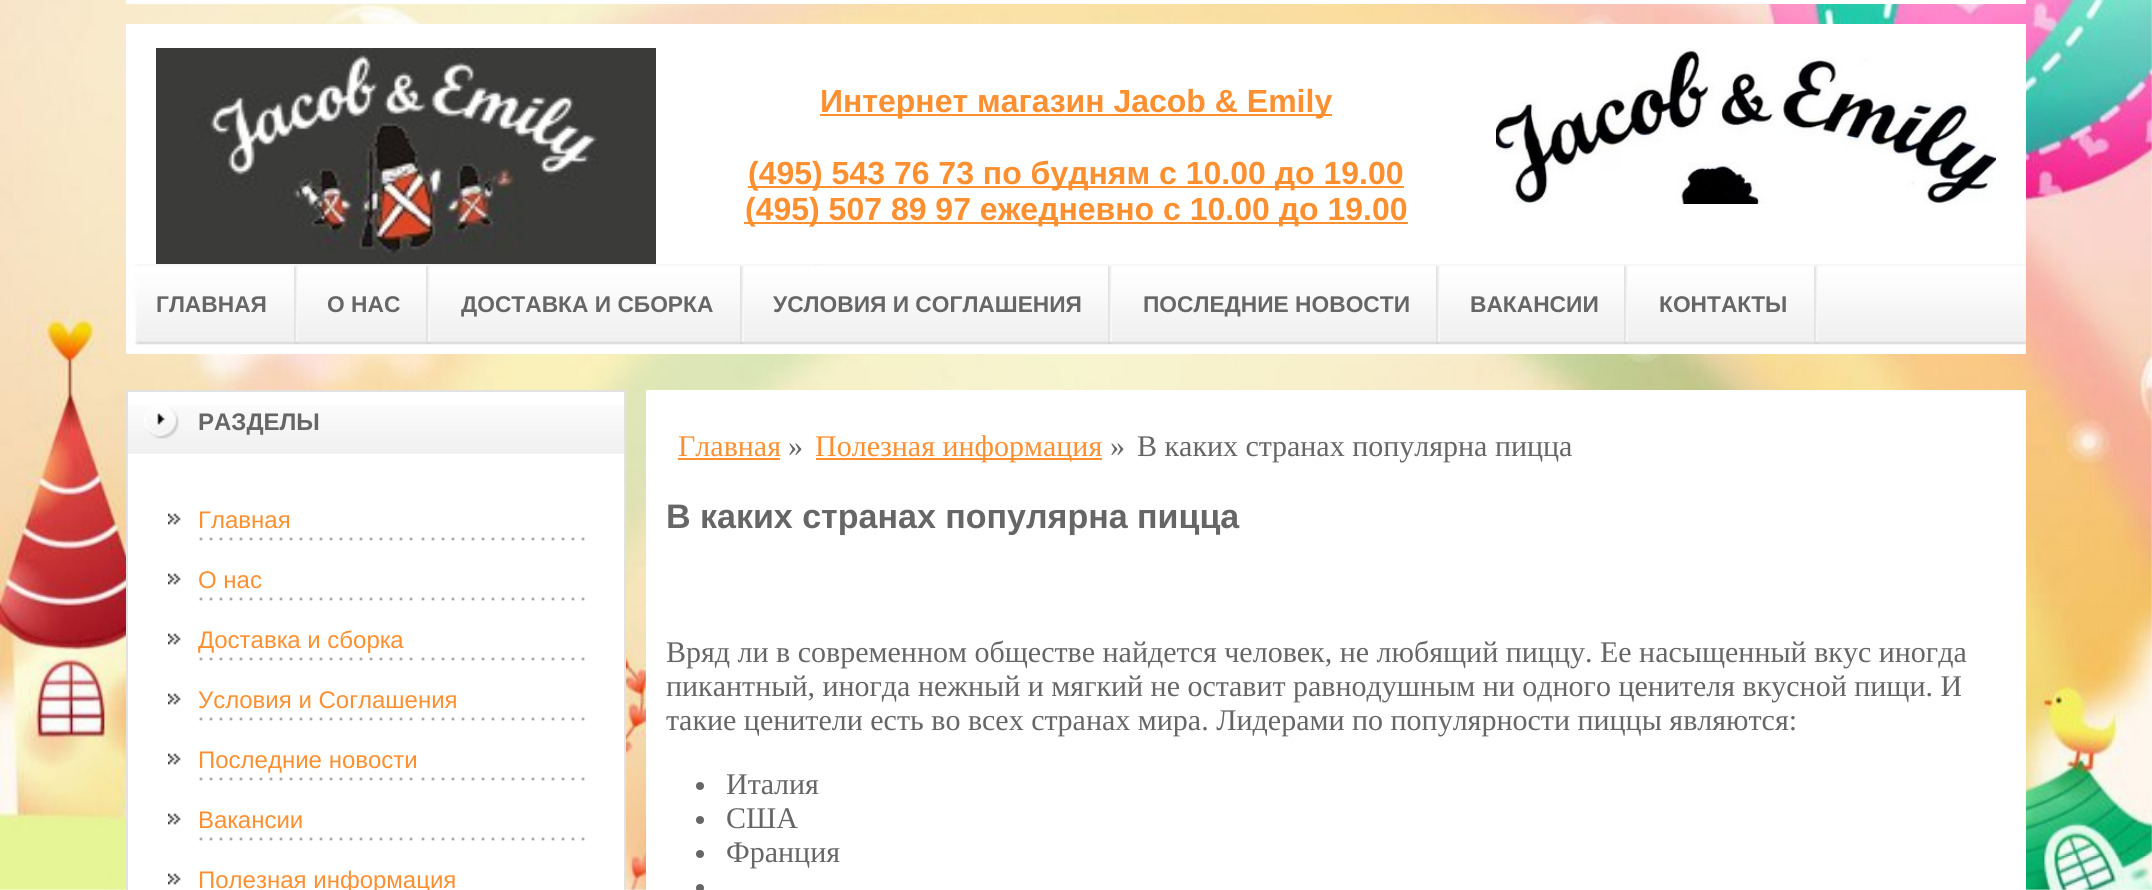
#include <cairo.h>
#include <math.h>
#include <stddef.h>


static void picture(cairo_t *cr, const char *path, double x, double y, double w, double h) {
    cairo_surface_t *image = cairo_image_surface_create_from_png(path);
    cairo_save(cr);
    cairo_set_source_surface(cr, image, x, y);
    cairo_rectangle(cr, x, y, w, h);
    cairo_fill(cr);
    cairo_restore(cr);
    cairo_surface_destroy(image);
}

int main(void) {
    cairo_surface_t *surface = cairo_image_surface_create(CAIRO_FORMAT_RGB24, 2152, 890);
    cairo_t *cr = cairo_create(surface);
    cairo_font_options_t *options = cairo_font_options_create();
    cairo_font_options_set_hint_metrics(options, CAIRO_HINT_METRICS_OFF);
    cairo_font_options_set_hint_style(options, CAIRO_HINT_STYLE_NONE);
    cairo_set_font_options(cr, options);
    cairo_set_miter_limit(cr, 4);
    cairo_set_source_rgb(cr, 1, 1, 1);
    cairo_paint(cr);
    picture(cr, "img1.png", 0, 0, 2152, 890);
    cairo_set_source_rgb(cr, 1, 1, 1);
    cairo_rectangle(cr, 126, 0, 1900, 4);
    cairo_fill(cr);
    cairo_rectangle(cr, 126, 24, 1900, 240);
    cairo_fill(cr);
    picture(cr, "img2.png", 156, 48, 500, 216);
    cairo_set_source_rgb(cr, 0.988, 0.561, 0.188);
    cairo_rectangle(cr, 820, 114, 512, 2);
    cairo_fill(cr);
    cairo_select_font_face(cr, "Liberation Sans", CAIRO_FONT_SLANT_NORMAL, CAIRO_FONT_WEIGHT_BOLD);
    cairo_set_font_size(cr, 32);
    cairo_move_to(cr, 820, 112);
    cairo_show_text(cr, "Интернет магазин Jacob & Emily");
    cairo_rectangle(cr, 748, 186, 656, 2);
    cairo_fill(cr);
    cairo_move_to(cr, 748, 184);
    cairo_show_text(cr, "(495) 543 76 73 по будням с 10.00 до 19.00");
    cairo_rectangle(cr, 744, 222, 664, 2);
    cairo_fill(cr);
    cairo_move_to(cr, 745, 220);
    cairo_show_text(cr, "(495) 507 89 97 ежедневно с 10.00 до 19.00");
    picture(cr, "img3.png", 1496, 48, 500, 156);
    picture(cr, "img4.png", 126, 264, 1900, 90);
    picture(cr, "img5.png", 294, 265, 4, 79);
    cairo_set_font_size(cr, 22.75);
    cairo_set_source_rgb(cr, 0.4, 0.4, 0.4);
    cairo_move_to(cr, 156, 312);
    cairo_show_text(cr, "ГЛАВНАЯ");
    picture(cr, "img5.png", 426, 265, 4, 79);
    cairo_move_to(cr, 327, 312);
    cairo_show_text(cr, "О НАС");
    picture(cr, "img5.png", 740, 265, 4, 79);
    cairo_move_to(cr, 461, 312);
    cairo_show_text(cr, "ДОСТАВКА И СБОРКА");
    picture(cr, "img5.png", 1108, 265, 4, 79);
    cairo_move_to(cr, 773, 312);
    cairo_show_text(cr, "УСЛОВИЯ И СОГЛАШЕНИЯ");
    picture(cr, "img5.png", 1436, 265, 4, 79);
    cairo_move_to(cr, 1143, 312);
    cairo_show_text(cr, "ПОСЛЕДНИЕ НОВОСТИ");
    picture(cr, "img5.png", 1624, 265, 4, 79);
    cairo_move_to(cr, 1470, 312);
    cairo_show_text(cr, "ВАКАНСИИ");
    picture(cr, "img5.png", 1814, 265, 4, 79);
    cairo_move_to(cr, 1659, 312);
    cairo_show_text(cr, "КОНТАКТЫ");
    cairo_set_source_rgb(cr, 1, 1, 1);
    cairo_rectangle(cr, 128, 392, 496, 498);
    cairo_fill(cr);
    picture(cr, "img6.png", 128, 405, 496, 49);
    cairo_rectangle(cr, 127, 391, 498, 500);
    cairo_set_source_rgb(cr, 0.89, 0.886, 0.886);
    cairo_stroke(cr);
    cairo_set_font_size(cr, 24);
    cairo_set_source_rgb(cr, 0.4, 0.4, 0.4);
    cairo_move_to(cr, 198, 430);
    cairo_show_text(cr, "РАЗДЕЛЫ");
    picture(cr, "img7.png", 168, 513, 417, 28);
    cairo_select_font_face(cr, "Liberation Sans", CAIRO_FONT_SLANT_NORMAL, CAIRO_FONT_WEIGHT_NORMAL);
    cairo_set_source_rgb(cr, 0.988, 0.561, 0.188);
    cairo_move_to(cr, 198, 528);
    cairo_show_text(cr, "Главная");
    picture(cr, "img7.png", 168, 573, 417, 28);
    cairo_move_to(cr, 198, 588);
    cairo_show_text(cr, "О нас");
    picture(cr, "img7.png", 168, 633, 417, 28);
    cairo_move_to(cr, 198, 648);
    cairo_show_text(cr, "Доставка и сборка");
    picture(cr, "img7.png", 168, 693, 417, 28);
    cairo_move_to(cr, 198, 708);
    cairo_show_text(cr, "Условия и Соглашения");
    picture(cr, "img7.png", 168, 753, 417, 28);
    cairo_move_to(cr, 198, 768);
    cairo_show_text(cr, "Последние новости");
    picture(cr, "img7.png", 168, 813, 417, 28);
    cairo_move_to(cr, 198, 828);
    cairo_show_text(cr, "Вакансии");
    picture(cr, "img8.png", 168, 873, 13, 12);
    cairo_move_to(cr, 198, 888);
    cairo_show_text(cr, "Полезная информация");
    cairo_set_source_rgb(cr, 1, 1, 1);
    cairo_rectangle(cr, 646, 390, 1380, 500);
    cairo_fill(cr);
    cairo_select_font_face(cr, "Liberation Serif", CAIRO_FONT_SLANT_NORMAL, CAIRO_FONT_WEIGHT_NORMAL);
    cairo_set_font_size(cr, 30);
    cairo_set_source_rgb(cr, 0.988, 0.561, 0.188);
    cairo_move_to(cr, 678, 456);
    cairo_show_text(cr, "Главная");
    cairo_rectangle(cr, 678, 458, 102, 2);
    cairo_fill(cr);
    cairo_set_source_rgb(cr, 0.4, 0.4, 0.4);
    cairo_move_to(cr, 788, 456);
    cairo_show_text(cr, "»");
    cairo_set_source_rgb(cr, 0.988, 0.561, 0.188);
    cairo_rectangle(cr, 816, 458, 286, 2);
    cairo_fill(cr);
    cairo_move_to(cr, 815, 456);
    cairo_show_text(cr, "Полезная информация");
    cairo_set_source_rgb(cr, 0.4, 0.4, 0.4);
    cairo_move_to(cr, 1110, 456);
    cairo_show_text(cr, "»");
    cairo_move_to(cr, 1137, 456);
    cairo_show_text(cr, "В каких странах популярна пицца");
    cairo_select_font_face(cr, "Liberation Sans", CAIRO_FONT_SLANT_NORMAL, CAIRO_FONT_WEIGHT_BOLD);
    cairo_set_font_size(cr, 34);
    cairo_move_to(cr, 666, 528);
    cairo_show_text(cr, "В каких странах популярна пицца");
    cairo_select_font_face(cr, "Liberation Serif", CAIRO_FONT_SLANT_NORMAL, CAIRO_FONT_WEIGHT_NORMAL);
    cairo_set_font_size(cr, 30);
    cairo_move_to(cr, 666, 662);
    cairo_show_text(cr, "Вряд ли в современном обществе найдется человек, не любящий пиццу. Ее насыщенный вкус иногда");
    cairo_move_to(cr, 666, 696);
    cairo_show_text(cr, "пикантный, иногда нежный и мягкий не оставит равнодушным ни одного ценителя вкусной пищи. И");
    cairo_move_to(cr, 666, 730);
    cairo_show_text(cr, "такие ценители есть во всех странах мира. Лидерами по популярности пиццы являются:");
    cairo_new_path(cr);
    cairo_arc(cr, 700, 786, 4, 0, 2 * M_PI);
    cairo_fill(cr);
    cairo_move_to(cr, 726, 794);
    cairo_show_text(cr, "Италия");
    cairo_new_path(cr);
    cairo_arc(cr, 700, 820, 4, 0, 2 * M_PI);
    cairo_fill(cr);
    cairo_move_to(cr, 726, 828);
    cairo_show_text(cr, "США");
    cairo_new_path(cr);
    cairo_arc(cr, 700, 854, 4, 0, 2 * M_PI);
    cairo_fill(cr);
    cairo_move_to(cr, 726, 862);
    cairo_show_text(cr, "Франция");
    cairo_new_path(cr);
    cairo_arc(cr, 700, 888, 4, 0, 2 * M_PI);
    cairo_fill(cr);
    cairo_surface_write_to_png(surface, "page.png");
    cairo_font_options_destroy(options);
    cairo_destroy(cr);
    cairo_surface_destroy(surface);
    return 0;
}
